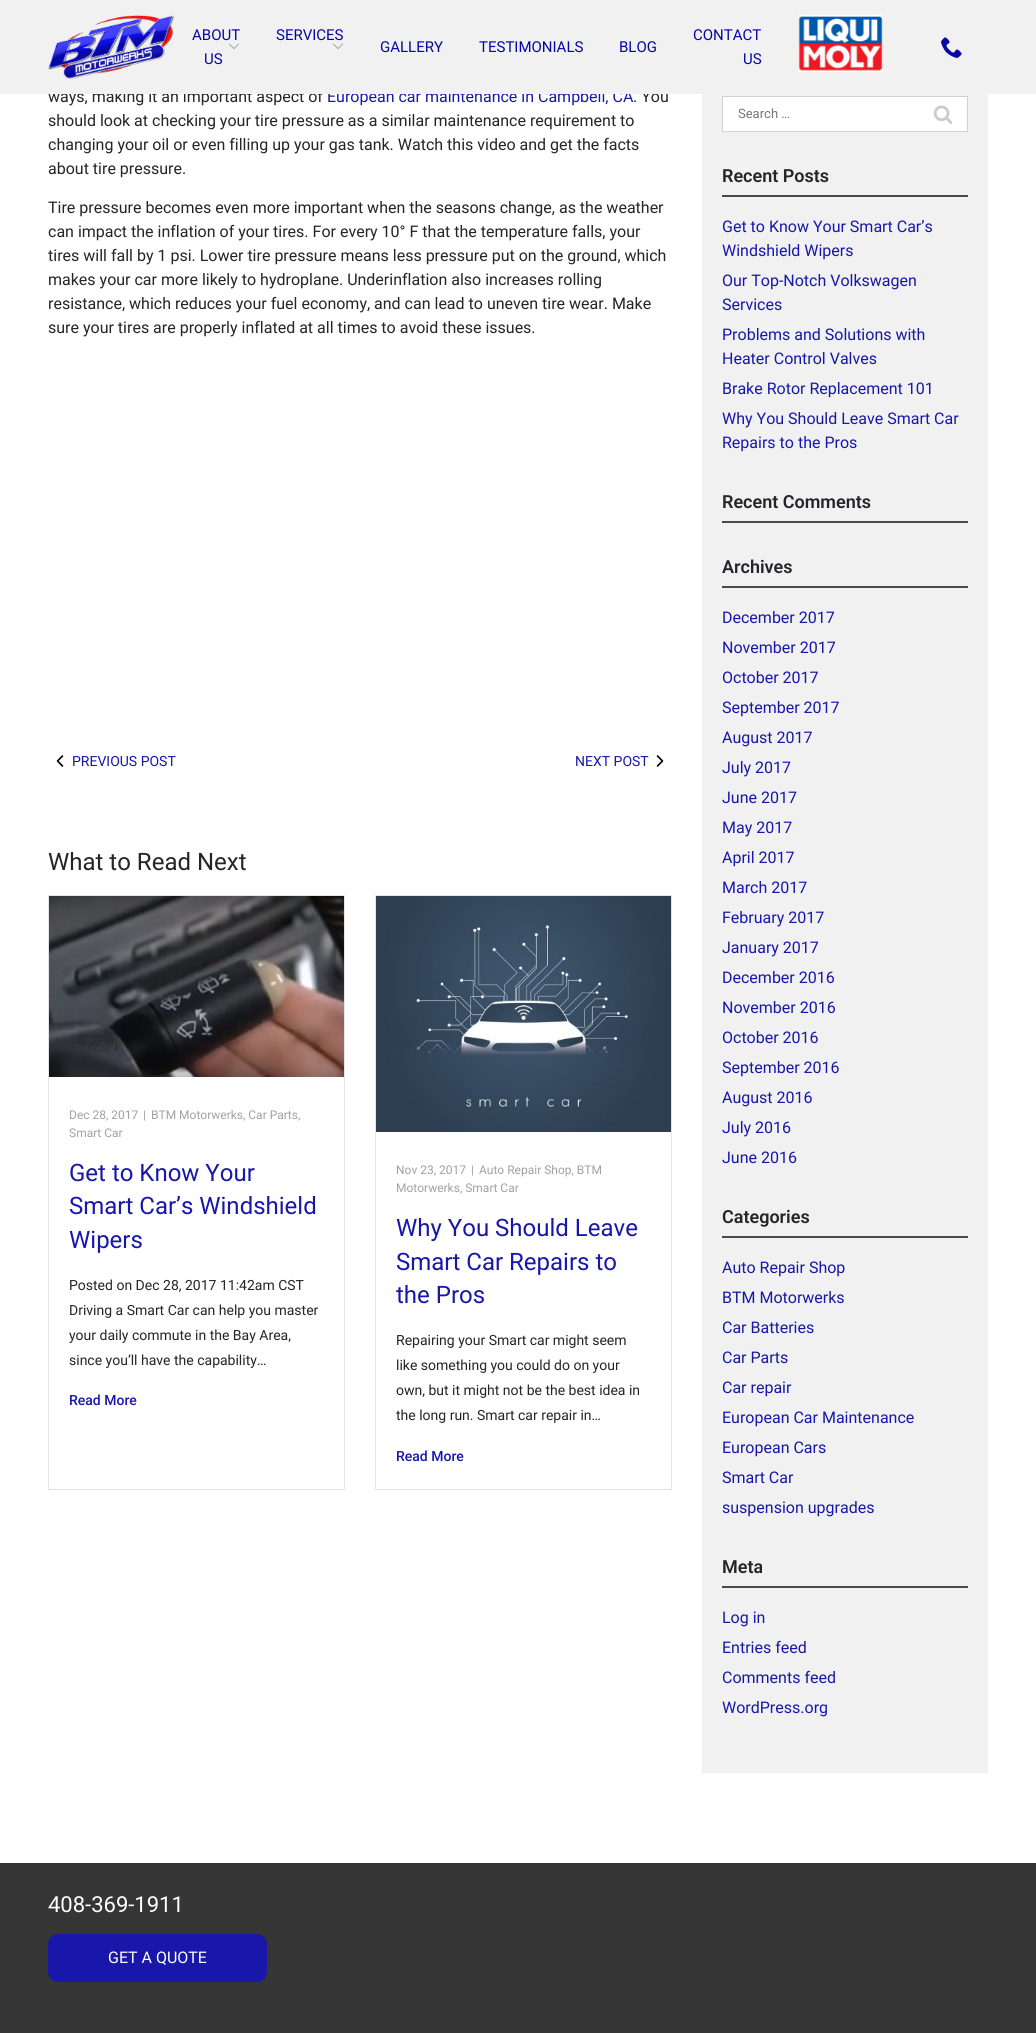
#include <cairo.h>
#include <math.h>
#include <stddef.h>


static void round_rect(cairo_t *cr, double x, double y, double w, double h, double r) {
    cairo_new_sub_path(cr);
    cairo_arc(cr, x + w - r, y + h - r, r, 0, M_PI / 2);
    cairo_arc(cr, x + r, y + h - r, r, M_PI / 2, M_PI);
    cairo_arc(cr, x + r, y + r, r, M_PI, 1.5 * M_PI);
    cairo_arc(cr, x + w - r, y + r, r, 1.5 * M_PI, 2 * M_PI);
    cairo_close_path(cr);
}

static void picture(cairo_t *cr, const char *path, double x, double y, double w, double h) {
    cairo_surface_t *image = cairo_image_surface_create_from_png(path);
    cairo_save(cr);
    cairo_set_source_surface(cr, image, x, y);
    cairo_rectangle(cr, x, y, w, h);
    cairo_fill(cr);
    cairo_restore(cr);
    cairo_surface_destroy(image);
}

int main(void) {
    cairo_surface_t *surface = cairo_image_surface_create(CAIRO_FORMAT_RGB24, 1036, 2033);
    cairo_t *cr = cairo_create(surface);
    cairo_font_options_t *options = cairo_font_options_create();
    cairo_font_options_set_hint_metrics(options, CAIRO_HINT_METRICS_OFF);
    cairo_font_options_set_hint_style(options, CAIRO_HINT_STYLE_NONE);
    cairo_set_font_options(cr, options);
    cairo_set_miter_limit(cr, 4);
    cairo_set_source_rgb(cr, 1, 1, 1);
    cairo_paint(cr);
    cairo_select_font_face(cr, "Roboto", CAIRO_FONT_SLANT_NORMAL, CAIRO_FONT_WEIGHT_NORMAL);
    cairo_set_font_size(cr, 16);
    cairo_set_source_rgb(cr, 0.141, 0.141, 0.161);
    cairo_move_to(cr, 48, 102);
    cairo_show_text(cr, "ways, making it an important aspect of");
    cairo_set_source_rgb(cr, 0.09, 0.09, 0.663);
    cairo_move_to(cr, 327, 102);
    cairo_show_text(cr, "European car maintenance in Campbell, CA");
    cairo_set_source_rgb(cr, 0.141, 0.141, 0.161);
    cairo_move_to(cr, 633, 102);
    cairo_show_text(cr, ". You");
    cairo_set_source_rgb(cr, 0.945, 0.945, 0.945);
    cairo_rectangle(cr, 0, 0, 1036, 94);
    cairo_fill(cr);
    picture(cr, "img1.png", 48, 15, 126, 64);
    cairo_set_font_size(cr, 15);
    cairo_set_source_rgb(cr, 0.027, 0.027, 0.647);
    cairo_move_to(cr, 192, 40);
    cairo_show_text(cr, "ABOUT");
    picture(cr, "img2.png", 229, 43, 10, 6);
    cairo_move_to(cr, 204, 64);
    cairo_show_text(cr, "US");
    cairo_move_to(cr, 276, 40);
    cairo_show_text(cr, "SERVICES");
    picture(cr, "img2.png", 333, 43, 10, 6);
    cairo_move_to(cr, 380, 52);
    cairo_show_text(cr, "GALLERY");
    cairo_move_to(cr, 479, 52);
    cairo_show_text(cr, "TESTIMONIALS");
    cairo_move_to(cr, 619, 52);
    cairo_show_text(cr, "BLOG");
    cairo_move_to(cr, 693, 40);
    cairo_show_text(cr, "CONTACT");
    cairo_move_to(cr, 743, 64);
    cairo_show_text(cr, "US");
    picture(cr, "img3.png", 798, 15, 85, 57);
    picture(cr, "img4.png", 941, 37, 21, 21);
    cairo_set_font_size(cr, 16);
    cairo_set_source_rgb(cr, 0.141, 0.141, 0.161);
    cairo_move_to(cr, 48, 126);
    cairo_show_text(cr, "should look at checking your tire pressure as a similar maintenance requirement to");
    cairo_move_to(cr, 48, 150);
    cairo_show_text(cr, "changing your oil or even filling up your gas tank. Watch this video and get the facts");
    cairo_move_to(cr, 48, 174);
    cairo_show_text(cr, "about tire pressure.");
    cairo_move_to(cr, 48, 213);
    cairo_show_text(cr, "Tire pressure becomes even more important when the seasons change, as the weather");
    cairo_move_to(cr, 48, 237);
    cairo_show_text(cr, "can impact the inflation of your tires. For every 10° F that the temperature falls, your");
    cairo_move_to(cr, 48, 261);
    cairo_show_text(cr, "tires will fall by 1 psi. Lower tire pressure means less pressure put on the ground, which");
    cairo_move_to(cr, 48, 285);
    cairo_show_text(cr, "makes your car more likely to hydroplane. Underinflation also increases rolling");
    cairo_move_to(cr, 48, 309);
    cairo_show_text(cr, "resistance, which reduces your fuel economy, and can lead to uneven tire wear. Make");
    cairo_move_to(cr, 48, 333);
    cairo_show_text(cr, "sure your tires are properly inflated at all times to avoid these issues.");
    picture(cr, "img5.png", 56, 755, 8, 12);
    cairo_set_font_size(cr, 14);
    cairo_set_source_rgb(cr, 0.09, 0.09, 0.663);
    cairo_move_to(cr, 72, 766);
    cairo_show_text(cr, "PREVIOUS POST");
    cairo_move_to(cr, 575, 766);
    cairo_show_text(cr, "NEXT POST");
    picture(cr, "img6.png", 656, 755, 8, 12);
    cairo_set_font_size(cr, 24);
    cairo_set_source_rgb(cr, 0.141, 0.141, 0.161);
    cairo_move_to(cr, 48, 870);
    cairo_show_text(cr, "What to Read Next");
    cairo_rectangle(cr, 48.5, 895.5, 296, 594);
    cairo_set_source_rgb(cr, 0.894, 0.894, 0.894);
    cairo_set_line_width(cr, 1);
    cairo_stroke(cr);
    picture(cr, "img7.png", 49, 896, 295, 181);
    cairo_set_font_size(cr, 12);
    cairo_set_source_rgb(cr, 0.631, 0.631, 0.631);
    cairo_move_to(cr, 69, 1119);
    cairo_show_text(cr, "Dec 28, 2017");
    cairo_move_to(cr, 143, 1119);
    cairo_show_text(cr, "|");
    cairo_move_to(cr, 151, 1119);
    cairo_show_text(cr, "BTM Motorwerks, Car Parts,");
    cairo_move_to(cr, 69, 1137);
    cairo_show_text(cr, "Smart Car");
    cairo_set_font_size(cr, 24);
    cairo_set_source_rgb(cr, 0.09, 0.09, 0.663);
    cairo_move_to(cr, 69, 1181);
    cairo_show_text(cr, "Get to Know Your");
    cairo_move_to(cr, 69, 1214);
    cairo_show_text(cr, "Smart Car’s Windshield");
    cairo_move_to(cr, 69, 1248);
    cairo_show_text(cr, "Wipers");
    cairo_set_font_size(cr, 14);
    cairo_set_source_rgb(cr, 0.141, 0.141, 0.161);
    cairo_move_to(cr, 69, 1290);
    cairo_show_text(cr, "Posted on Dec 28, 2017 11:42am CST");
    cairo_move_to(cr, 69, 1315);
    cairo_show_text(cr, "Driving a Smart Car can help you master");
    cairo_move_to(cr, 69, 1340);
    cairo_show_text(cr, "your daily commute in the Bay Area,");
    cairo_move_to(cr, 69, 1365);
    cairo_show_text(cr, "since you’ll have the capability…");
    cairo_select_font_face(cr, "Roboto Medium", CAIRO_FONT_SLANT_NORMAL, CAIRO_FONT_WEIGHT_NORMAL);
    cairo_set_source_rgb(cr, 0.09, 0.09, 0.663);
    cairo_move_to(cr, 69, 1405);
    cairo_show_text(cr, "Read More");
    cairo_rectangle(cr, 375.5, 895.5, 296, 594);
    cairo_set_source_rgb(cr, 0.894, 0.894, 0.894);
    cairo_stroke(cr);
    picture(cr, "img8.png", 376, 896, 295, 236);
    cairo_select_font_face(cr, "Roboto", CAIRO_FONT_SLANT_NORMAL, CAIRO_FONT_WEIGHT_NORMAL);
    cairo_set_font_size(cr, 12);
    cairo_set_source_rgb(cr, 0.631, 0.631, 0.631);
    cairo_move_to(cr, 396, 1174);
    cairo_show_text(cr, "Nov 23, 2017");
    cairo_move_to(cr, 471, 1174);
    cairo_show_text(cr, "|");
    cairo_move_to(cr, 479, 1174);
    cairo_show_text(cr, "Auto Repair Shop, BTM");
    cairo_move_to(cr, 396, 1192);
    cairo_show_text(cr, "Motorwerks, Smart Car");
    cairo_set_font_size(cr, 24);
    cairo_set_source_rgb(cr, 0.09, 0.09, 0.663);
    cairo_move_to(cr, 396, 1236);
    cairo_show_text(cr, "Why You Should Leave");
    cairo_move_to(cr, 396, 1270);
    cairo_show_text(cr, "Smart Car Repairs to");
    cairo_move_to(cr, 396, 1303);
    cairo_show_text(cr, "the Pros");
    cairo_set_font_size(cr, 14);
    cairo_set_source_rgb(cr, 0.141, 0.141, 0.161);
    cairo_move_to(cr, 396, 1345);
    cairo_show_text(cr, "Repairing your Smart car might seem");
    cairo_move_to(cr, 396, 1370);
    cairo_show_text(cr, "like something you could do on your");
    cairo_move_to(cr, 396, 1395);
    cairo_show_text(cr, "own, but it might not be the best idea in");
    cairo_move_to(cr, 396, 1420);
    cairo_show_text(cr, "the long run. Smart car repair in…");
    cairo_select_font_face(cr, "Roboto Medium", CAIRO_FONT_SLANT_NORMAL, CAIRO_FONT_WEIGHT_NORMAL);
    cairo_set_source_rgb(cr, 0.09, 0.09, 0.663);
    cairo_move_to(cr, 396, 1461);
    cairo_show_text(cr, "Read More");
    cairo_set_source_rgb(cr, 0.945, 0.945, 0.945);
    cairo_rectangle(cr, 702, 94, 286, 1679);
    cairo_fill(cr);
    cairo_set_source_rgb(cr, 1, 1, 1);
    cairo_rectangle(cr, 722.5, 96.5, 245, 35);
    cairo_fill_preserve(cr);
    cairo_set_source_rgb(cr, 0.816, 0.816, 0.816);
    cairo_stroke(cr);
    cairo_select_font_face(cr, "Roboto", CAIRO_FONT_SLANT_NORMAL, CAIRO_FONT_WEIGHT_NORMAL);
    cairo_set_font_size(cr, 13);
    cairo_set_source_rgb(cr, 0.459, 0.459, 0.459);
    cairo_move_to(cr, 738, 118);
    cairo_show_text(cr, "Search …");
    picture(cr, "img9.png", 933, 105, 20, 19);
    cairo_set_source_rgb(cr, 0.286, 0.286, 0.286);
    cairo_rectangle(cr, 722, 195, 246, 2);
    cairo_fill(cr);
    cairo_select_font_face(cr, "Roboto SemiBold", CAIRO_FONT_SLANT_NORMAL, CAIRO_FONT_WEIGHT_NORMAL);
    cairo_set_font_size(cr, 18);
    cairo_set_source_rgb(cr, 0.141, 0.141, 0.161);
    cairo_move_to(cr, 722, 182);
    cairo_show_text(cr, "Recent Posts");
    cairo_select_font_face(cr, "Roboto", CAIRO_FONT_SLANT_NORMAL, CAIRO_FONT_WEIGHT_NORMAL);
    cairo_set_font_size(cr, 16);
    cairo_set_source_rgb(cr, 0.09, 0.09, 0.663);
    cairo_move_to(cr, 722, 232);
    cairo_show_text(cr, "Get to Know Your Smart Car’s");
    cairo_move_to(cr, 722, 256);
    cairo_show_text(cr, "Windshield Wipers");
    cairo_move_to(cr, 722, 286);
    cairo_show_text(cr, "Our Top-Notch Volkswagen");
    cairo_move_to(cr, 722, 310);
    cairo_show_text(cr, "Services");
    cairo_move_to(cr, 722, 340);
    cairo_show_text(cr, "Problems and Solutions with");
    cairo_move_to(cr, 722, 364);
    cairo_show_text(cr, "Heater Control Valves");
    cairo_move_to(cr, 722, 394);
    cairo_show_text(cr, "Brake Rotor Replacement 101");
    cairo_move_to(cr, 722, 424);
    cairo_show_text(cr, "Why You Should Leave Smart Car");
    cairo_move_to(cr, 722, 448);
    cairo_show_text(cr, "Repairs to the Pros");
    cairo_set_source_rgb(cr, 0.286, 0.286, 0.286);
    cairo_rectangle(cr, 722, 521, 246, 2);
    cairo_fill(cr);
    cairo_select_font_face(cr, "Roboto SemiBold", CAIRO_FONT_SLANT_NORMAL, CAIRO_FONT_WEIGHT_NORMAL);
    cairo_set_font_size(cr, 18);
    cairo_set_source_rgb(cr, 0.141, 0.141, 0.161);
    cairo_move_to(cr, 722, 508);
    cairo_show_text(cr, "Recent Comments");
    cairo_set_source_rgb(cr, 0.286, 0.286, 0.286);
    cairo_rectangle(cr, 722, 586, 246, 2);
    cairo_fill(cr);
    cairo_set_source_rgb(cr, 0.141, 0.141, 0.161);
    cairo_move_to(cr, 722, 573);
    cairo_show_text(cr, "Archives");
    cairo_select_font_face(cr, "Roboto", CAIRO_FONT_SLANT_NORMAL, CAIRO_FONT_WEIGHT_NORMAL);
    cairo_set_font_size(cr, 16);
    cairo_set_source_rgb(cr, 0.09, 0.09, 0.663);
    cairo_move_to(cr, 722, 623);
    cairo_show_text(cr, "December 2017");
    cairo_move_to(cr, 722, 653);
    cairo_show_text(cr, "November 2017");
    cairo_move_to(cr, 722, 683);
    cairo_show_text(cr, "October 2017");
    cairo_move_to(cr, 722, 713);
    cairo_show_text(cr, "September 2017");
    cairo_move_to(cr, 722, 743);
    cairo_show_text(cr, "August 2017");
    cairo_move_to(cr, 722, 773);
    cairo_show_text(cr, "July 2017");
    cairo_move_to(cr, 722, 803);
    cairo_show_text(cr, "June 2017");
    cairo_move_to(cr, 722, 833);
    cairo_show_text(cr, "May 2017");
    cairo_move_to(cr, 722, 863);
    cairo_show_text(cr, "April 2017");
    cairo_move_to(cr, 722, 893);
    cairo_show_text(cr, "March 2017");
    cairo_move_to(cr, 722, 923);
    cairo_show_text(cr, "February 2017");
    cairo_move_to(cr, 722, 953);
    cairo_show_text(cr, "January 2017");
    cairo_move_to(cr, 722, 983);
    cairo_show_text(cr, "December 2016");
    cairo_move_to(cr, 722, 1013);
    cairo_show_text(cr, "November 2016");
    cairo_move_to(cr, 722, 1043);
    cairo_show_text(cr, "October 2016");
    cairo_move_to(cr, 722, 1073);
    cairo_show_text(cr, "September 2016");
    cairo_move_to(cr, 722, 1103);
    cairo_show_text(cr, "August 2016");
    cairo_move_to(cr, 722, 1133);
    cairo_show_text(cr, "July 2016");
    cairo_move_to(cr, 722, 1163);
    cairo_show_text(cr, "June 2016");
    cairo_set_source_rgb(cr, 0.286, 0.286, 0.286);
    cairo_rectangle(cr, 722, 1236, 246, 2);
    cairo_fill(cr);
    cairo_select_font_face(cr, "Roboto SemiBold", CAIRO_FONT_SLANT_NORMAL, CAIRO_FONT_WEIGHT_NORMAL);
    cairo_set_font_size(cr, 18);
    cairo_set_source_rgb(cr, 0.141, 0.141, 0.161);
    cairo_move_to(cr, 722, 1223);
    cairo_show_text(cr, "Categories");
    cairo_select_font_face(cr, "Roboto", CAIRO_FONT_SLANT_NORMAL, CAIRO_FONT_WEIGHT_NORMAL);
    cairo_set_font_size(cr, 16);
    cairo_set_source_rgb(cr, 0.09, 0.09, 0.663);
    cairo_move_to(cr, 722, 1273);
    cairo_show_text(cr, "Auto Repair Shop");
    cairo_move_to(cr, 722, 1303);
    cairo_show_text(cr, "BTM Motorwerks");
    cairo_move_to(cr, 722, 1333);
    cairo_show_text(cr, "Car Batteries");
    cairo_move_to(cr, 722, 1363);
    cairo_show_text(cr, "Car Parts");
    cairo_move_to(cr, 722, 1393);
    cairo_show_text(cr, "Car repair");
    cairo_move_to(cr, 722, 1423);
    cairo_show_text(cr, "European Car Maintenance");
    cairo_move_to(cr, 722, 1453);
    cairo_show_text(cr, "European Cars");
    cairo_move_to(cr, 722, 1483);
    cairo_show_text(cr, "Smart Car");
    cairo_move_to(cr, 722, 1513);
    cairo_show_text(cr, "suspension upgrades");
    cairo_set_source_rgb(cr, 0.286, 0.286, 0.286);
    cairo_rectangle(cr, 722, 1586, 246, 2);
    cairo_fill(cr);
    cairo_select_font_face(cr, "Roboto SemiBold", CAIRO_FONT_SLANT_NORMAL, CAIRO_FONT_WEIGHT_NORMAL);
    cairo_set_font_size(cr, 18);
    cairo_set_source_rgb(cr, 0.141, 0.141, 0.161);
    cairo_move_to(cr, 722, 1573);
    cairo_show_text(cr, "Meta");
    cairo_select_font_face(cr, "Roboto", CAIRO_FONT_SLANT_NORMAL, CAIRO_FONT_WEIGHT_NORMAL);
    cairo_set_font_size(cr, 16);
    cairo_set_source_rgb(cr, 0.09, 0.09, 0.663);
    cairo_move_to(cr, 722, 1623);
    cairo_show_text(cr, "Log in");
    cairo_move_to(cr, 722, 1653);
    cairo_show_text(cr, "Entries feed");
    cairo_move_to(cr, 722, 1683);
    cairo_show_text(cr, "Comments feed");
    cairo_move_to(cr, 722, 1713);
    cairo_show_text(cr, "WordPress.org");
    cairo_set_source_rgb(cr, 0.212, 0.212, 0.212);
    cairo_rectangle(cr, 0, 1863, 1036, 170);
    cairo_fill(cr);
    cairo_set_font_size(cr, 22);
    cairo_set_source_rgb(cr, 1, 1, 1);
    cairo_move_to(cr, 48, 1912);
    cairo_show_text(cr, "408-369-1911");
    cairo_set_source_rgb(cr, 0.098, 0.09, 0.663);
    round_rect(cr, 48, 1934, 219, 48, 10);
    cairo_fill(cr);
    cairo_set_font_size(cr, 16);
    cairo_set_source_rgb(cr, 1, 1, 1);
    cairo_move_to(cr, 108, 1963);
    cairo_show_text(cr, "GET A QUOTE");
    cairo_surface_write_to_png(surface, "page.png");
    cairo_font_options_destroy(options);
    cairo_destroy(cr);
    cairo_surface_destroy(surface);
    return 0;
}
